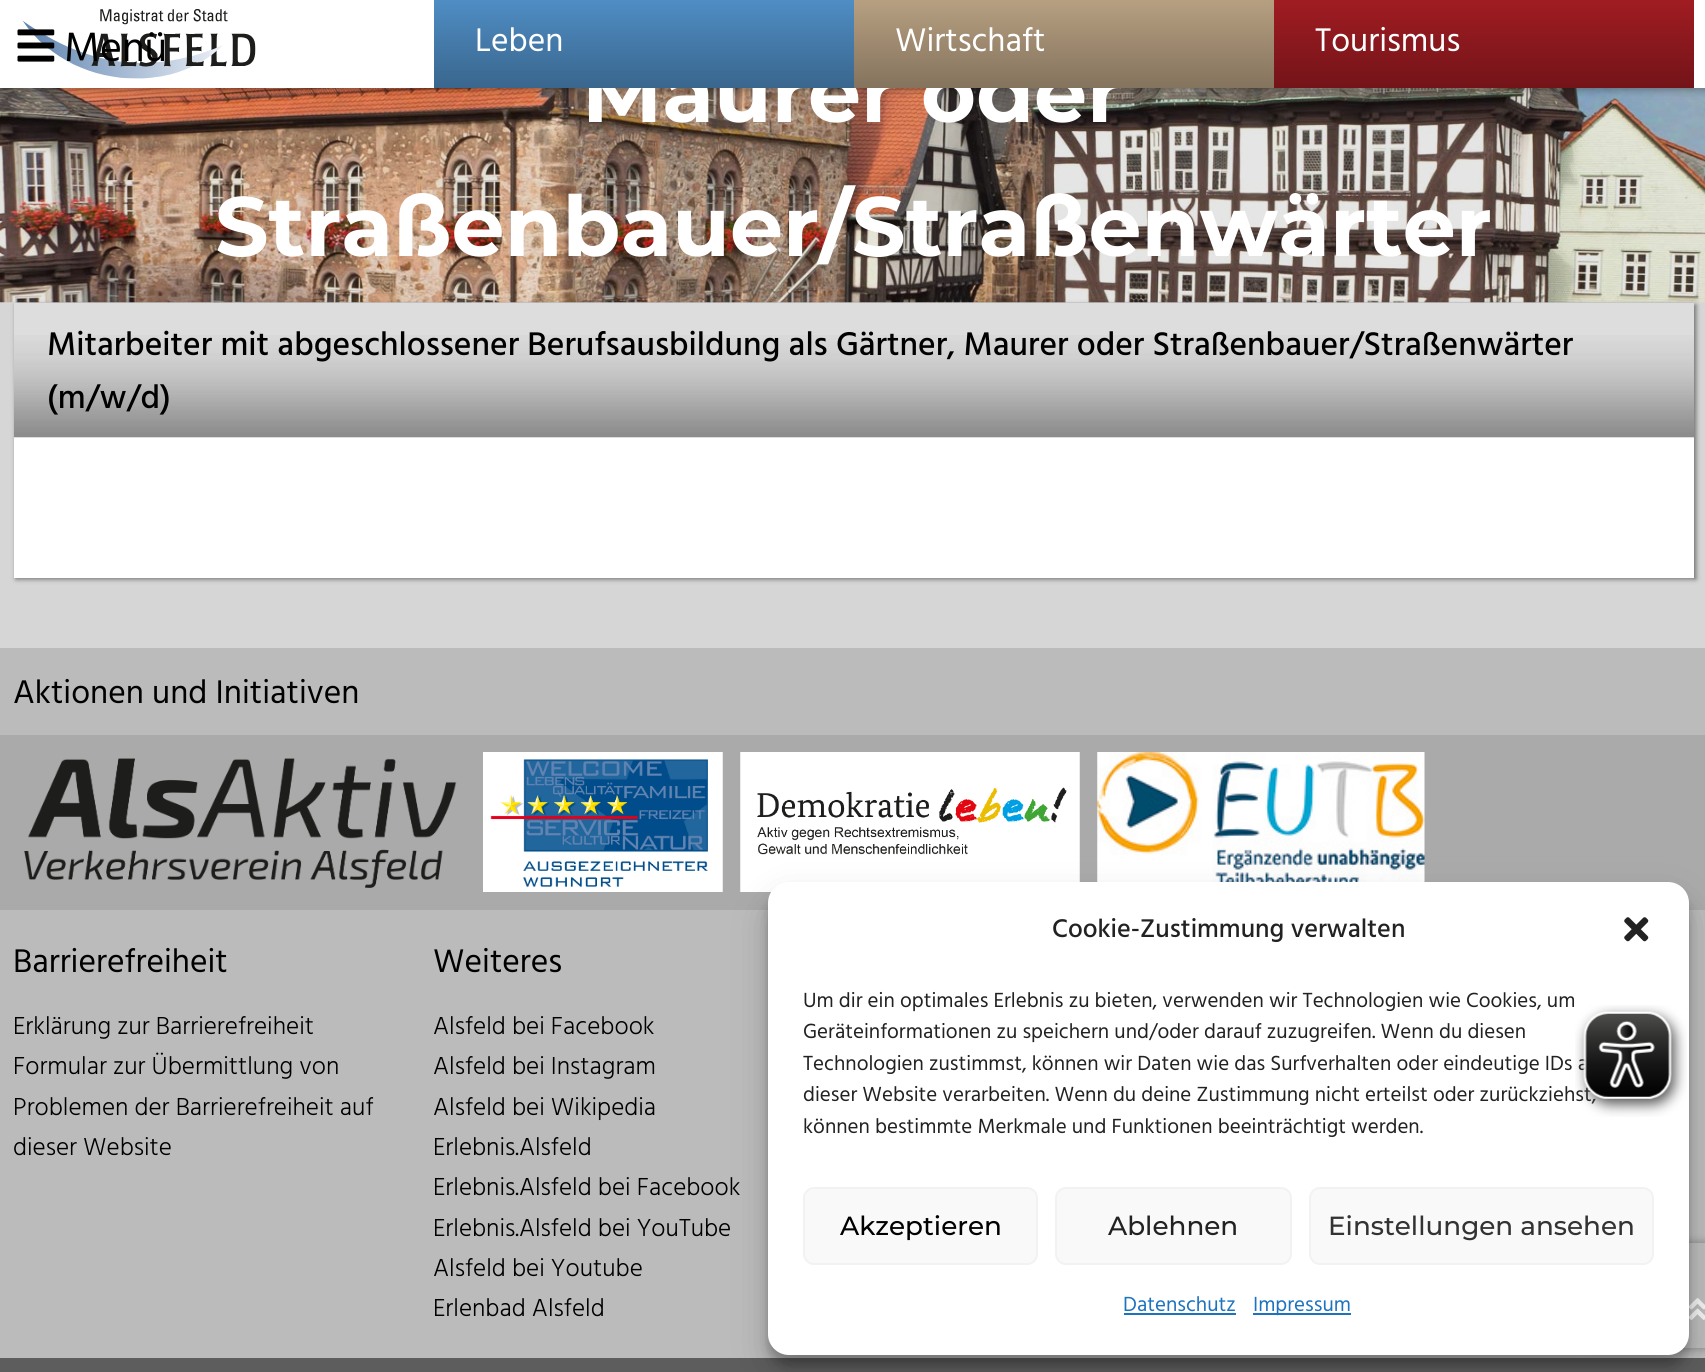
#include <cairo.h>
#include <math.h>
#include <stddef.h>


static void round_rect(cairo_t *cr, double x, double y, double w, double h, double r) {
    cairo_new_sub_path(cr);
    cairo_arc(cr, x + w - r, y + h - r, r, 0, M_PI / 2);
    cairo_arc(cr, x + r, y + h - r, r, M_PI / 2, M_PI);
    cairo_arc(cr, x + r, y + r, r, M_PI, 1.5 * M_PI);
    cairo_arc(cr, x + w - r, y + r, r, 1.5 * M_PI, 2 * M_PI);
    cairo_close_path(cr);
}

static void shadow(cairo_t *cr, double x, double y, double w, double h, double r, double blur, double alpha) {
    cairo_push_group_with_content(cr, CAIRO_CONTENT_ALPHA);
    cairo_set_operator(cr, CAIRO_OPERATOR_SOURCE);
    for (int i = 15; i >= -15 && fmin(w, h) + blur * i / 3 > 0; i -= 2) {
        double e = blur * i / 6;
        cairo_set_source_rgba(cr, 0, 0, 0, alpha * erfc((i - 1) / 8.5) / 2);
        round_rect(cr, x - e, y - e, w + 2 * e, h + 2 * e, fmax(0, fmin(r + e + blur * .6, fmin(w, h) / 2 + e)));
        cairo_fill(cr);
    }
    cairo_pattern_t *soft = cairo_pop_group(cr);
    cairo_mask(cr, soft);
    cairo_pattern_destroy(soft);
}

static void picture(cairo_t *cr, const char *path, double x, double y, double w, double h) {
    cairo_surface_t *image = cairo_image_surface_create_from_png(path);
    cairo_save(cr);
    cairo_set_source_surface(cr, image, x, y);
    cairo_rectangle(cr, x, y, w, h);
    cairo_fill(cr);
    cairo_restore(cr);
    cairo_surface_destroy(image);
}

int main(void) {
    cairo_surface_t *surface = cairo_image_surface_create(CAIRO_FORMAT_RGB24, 1705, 1372);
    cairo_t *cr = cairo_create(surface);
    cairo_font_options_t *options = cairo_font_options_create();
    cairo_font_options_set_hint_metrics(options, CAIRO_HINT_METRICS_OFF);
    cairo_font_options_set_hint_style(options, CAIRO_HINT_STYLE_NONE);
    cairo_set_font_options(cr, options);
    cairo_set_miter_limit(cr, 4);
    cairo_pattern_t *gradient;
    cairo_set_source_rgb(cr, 0.839, 0.839, 0.839);
    cairo_paint(cr);
    picture(cr, "img3.png", 0, 88, 1705, 215);
    cairo_set_source_rgb(cr, 0, 0, 0);
    shadow(cr, -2, -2, 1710, 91, 0, 4.5, 0.4);
    cairo_set_source_rgb(cr, 1, 1, 1);
    cairo_rectangle(cr, 0, 0, 1705, 88);
    cairo_fill(cr);
    picture(cr, "img2.png", 23, 9, 233, 70);
    picture(cr, "img1.png", 17, 29, 38, 33);
    cairo_select_font_face(cr, "Hind", CAIRO_FONT_SLANT_NORMAL, CAIRO_FONT_WEIGHT_NORMAL);
    cairo_set_font_size(cr, 42);
    cairo_set_source_rgb(cr, 0, 0, 0);
    cairo_move_to(cr, 64, 61);
    cairo_show_text(cr, "Menü");
    cairo_select_font_face(cr, "Montserrat", CAIRO_FONT_SLANT_NORMAL, CAIRO_FONT_WEIGHT_BOLD);
    cairo_set_font_size(cr, 84);
    cairo_set_source_rgb(cr, 1, 1, 1);
    cairo_move_to(cr, 582, 122);
    cairo_show_text(cr, "Maurer oder");
    gradient = cairo_pattern_create_linear(644, -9, 644, 88);
    cairo_pattern_add_color_stop_rgba(gradient, 0, 0.318, 0.569, 0.792, 1);
    cairo_pattern_add_color_stop_rgba(gradient, 1, 0.224, 0.4, 0.553, 1);
    cairo_set_source(cr, gradient);
    cairo_pattern_destroy(gradient);
    cairo_rectangle(cr, 434, 0, 420, 88);
    cairo_fill(cr);
    cairo_select_font_face(cr, "Hind", CAIRO_FONT_SLANT_NORMAL, CAIRO_FONT_WEIGHT_NORMAL);
    cairo_set_font_size(cr, 33.6);
    cairo_set_source_rgb(cr, 1, 1, 1);
    cairo_move_to(cr, 475, 51);
    cairo_show_text(cr, "Leben");
    gradient = cairo_pattern_create_linear(1064, -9, 1064, 88);
    cairo_pattern_add_color_stop_rgba(gradient, 0, 0.737, 0.643, 0.522, 1);
    cairo_pattern_add_color_stop_rgba(gradient, 1, 0.518, 0.451, 0.365, 1);
    cairo_set_source(cr, gradient);
    cairo_pattern_destroy(gradient);
    cairo_rectangle(cr, 854, 0, 420, 88);
    cairo_fill(cr);
    cairo_set_source_rgb(cr, 1, 1, 1);
    cairo_move_to(cr, 895, 51);
    cairo_show_text(cr, "Wirtschaft");
    gradient = cairo_pattern_create_linear(1484, -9, 1484, 88);
    cairo_pattern_add_color_stop_rgba(gradient, 0, 0.643, 0.114, 0.137, 1);
    cairo_pattern_add_color_stop_rgba(gradient, 1, 0.451, 0.078, 0.098, 1);
    cairo_set_source(cr, gradient);
    cairo_pattern_destroy(gradient);
    cairo_rectangle(cr, 1274, 0, 420, 88);
    cairo_fill(cr);
    cairo_set_source_rgb(cr, 1, 1, 1);
    cairo_move_to(cr, 1315, 51);
    cairo_show_text(cr, "Tourismus");
    cairo_select_font_face(cr, "Montserrat", CAIRO_FONT_SLANT_NORMAL, CAIRO_FONT_WEIGHT_BOLD);
    cairo_set_font_size(cr, 84);
    cairo_move_to(cr, 215, 256);
    cairo_show_text(cr, "Straßenbauer/Straßenwärter");
    cairo_set_source_rgb(cr, 0, 0, 0);
    shadow(cr, 16, 305, 1680, 274, 0, 2.5, 0.5);
    cairo_set_source_rgb(cr, 1, 1, 1);
    cairo_rectangle(cr, 14, 438, 1680, 140);
    cairo_fill(cr);
    cairo_set_source_rgb(cr, 0.867, 0.867, 0.867);
    cairo_rectangle(cr, 14, 303, 1680, 135);
    cairo_fill(cr);
    picture(cr, "img4.png", 14, 335, 1680, 102);
    cairo_select_font_face(cr, "Hind Medium", CAIRO_FONT_SLANT_NORMAL, CAIRO_FONT_WEIGHT_NORMAL);
    cairo_set_font_size(cr, 33.6);
    cairo_set_source_rgb(cr, 0, 0, 0);
    cairo_move_to(cr, 47, 355);
    cairo_show_text(cr, "Mitarbeiter mit abgeschlossener Berufsausbildung als Gärtner, Maurer oder Straßenbauer/Straßenwärter");
    cairo_move_to(cr, 47, 408);
    cairo_show_text(cr, "(m/w/d)");
    cairo_set_source_rgb(cr, 0.733, 0.733, 0.733);
    cairo_rectangle(cr, 0, 648, 1705, 710);
    cairo_fill(cr);
    cairo_select_font_face(cr, "Hind", CAIRO_FONT_SLANT_NORMAL, CAIRO_FONT_WEIGHT_NORMAL);
    cairo_set_source_rgb(cr, 0, 0, 0);
    cairo_move_to(cr, 13, 703);
    cairo_show_text(cr, "Aktionen und Initiativen");
    cairo_set_source_rgb(cr, 0.667, 0.667, 0.667);
    cairo_rectangle(cr, 0, 735, 1705, 175);
    cairo_fill(cr);
    picture(cr, "img5.png", 24, 758, 433, 130);
    picture(cr, "img6.png", 483, 752, 240, 140);
    picture(cr, "img7.png", 740, 752, 340, 140);
    picture(cr, "img8.png", 1097, 752, 328, 130);
    cairo_set_source_rgb(cr, 0, 0, 0);
    cairo_move_to(cr, 13, 972);
    cairo_show_text(cr, "Barrierefreiheit");
    cairo_select_font_face(cr, "Hind Light", CAIRO_FONT_SLANT_NORMAL, CAIRO_FONT_WEIGHT_NORMAL);
    cairo_set_font_size(cr, 25.25);
    cairo_move_to(cr, 13, 1034);
    cairo_show_text(cr, "Erklärung zur Barrierefreiheit");
    cairo_move_to(cr, 13, 1074);
    cairo_show_text(cr, "Formular zur Übermittlung von");
    cairo_move_to(cr, 13, 1115);
    cairo_show_text(cr, "Problemen der Barrierefreiheit auf");
    cairo_move_to(cr, 13, 1155);
    cairo_show_text(cr, "dieser Website");
    cairo_select_font_face(cr, "Hind", CAIRO_FONT_SLANT_NORMAL, CAIRO_FONT_WEIGHT_NORMAL);
    cairo_set_font_size(cr, 33.6);
    cairo_move_to(cr, 433, 972);
    cairo_show_text(cr, "Weiteres");
    cairo_select_font_face(cr, "Hind Light", CAIRO_FONT_SLANT_NORMAL, CAIRO_FONT_WEIGHT_NORMAL);
    cairo_set_font_size(cr, 25.25);
    cairo_move_to(cr, 433, 1034);
    cairo_show_text(cr, "Alsfeld bei Facebook");
    cairo_move_to(cr, 433, 1074);
    cairo_show_text(cr, "Alsfeld bei Instagram");
    cairo_move_to(cr, 433, 1115);
    cairo_show_text(cr, "Alsfeld bei Wikipedia");
    cairo_move_to(cr, 433, 1155);
    cairo_show_text(cr, "Erlebnis.Alsfeld");
    cairo_move_to(cr, 433, 1195);
    cairo_show_text(cr, "Erlebnis.Alsfeld bei Facebook");
    cairo_move_to(cr, 433, 1236);
    cairo_show_text(cr, "Erlebnis.Alsfeld bei YouTube");
    cairo_move_to(cr, 433, 1276);
    cairo_show_text(cr, "Alsfeld bei Youtube");
    cairo_move_to(cr, 433, 1316);
    cairo_show_text(cr, "Erlenbad Alsfeld");
    cairo_set_source_rgb(cr, 0.365, 0.365, 0.365);
    cairo_rectangle(cr, 0, 1358, 1705, 14);
    cairo_fill(cr);
    cairo_save(cr);
    cairo_set_fill_rule(cr, CAIRO_FILL_RULE_EVEN_ODD);
    cairo_new_path(cr);
    cairo_move_to(cr, 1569, 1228);
    cairo_line_to(cr, 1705, 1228);
    cairo_line_to(cr, 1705, 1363);
    cairo_line_to(cr, 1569, 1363);
    cairo_close_path(cr);
    cairo_move_to(cr, 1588, 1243);
    cairo_line_to(cr, 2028, 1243);
    cairo_curve_to(cr, 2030, 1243, 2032, 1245, 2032, 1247);
    cairo_line_to(cr, 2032, 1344);
    cairo_curve_to(cr, 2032, 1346, 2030, 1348, 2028, 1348);
    cairo_line_to(cr, 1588, 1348);
    cairo_curve_to(cr, 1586, 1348, 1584, 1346, 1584, 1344);
    cairo_line_to(cr, 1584, 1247);
    cairo_curve_to(cr, 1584, 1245, 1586, 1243, 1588, 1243);
    cairo_close_path(cr);
    cairo_clip(cr);
    cairo_set_source_rgb(cr, 0.502, 0.502, 0.502);
    shadow(cr, 1584, 1243, 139, 105, 4, 4.5, 1);
    cairo_restore(cr);
    picture(cr, "img11.png", 1689, 1298, 16, 22);
    cairo_set_source_rgb(cr, 0, 0, 0);
    shadow(cr, 768, 893, 921, 472, 21, 5, 0.23);
    shadow(cr, 768, 900, 921, 472, 21, 17.5, 0.19);
    cairo_set_source_rgb(cr, 1, 1, 1);
    round_rect(cr, 768, 882, 921, 473, 21);
    cairo_fill(cr);
    cairo_select_font_face(cr, "Hind Medium", CAIRO_FONT_SLANT_NORMAL, CAIRO_FONT_WEIGHT_NORMAL);
    cairo_set_font_size(cr, 26.25);
    cairo_set_source_rgb(cr, 0.133, 0.133, 0.133);
    cairo_move_to(cr, 1052, 937);
    cairo_show_text(cr, "Cookie-Zustimmung verwalten");
    picture(cr, "img9.png", 1624, 917, 25, 25);
    cairo_select_font_face(cr, "Hind", CAIRO_FONT_SLANT_NORMAL, CAIRO_FONT_WEIGHT_NORMAL);
    cairo_set_font_size(cr, 21);
    cairo_move_to(cr, 803, 1007);
    cairo_show_text(cr, "Um dir ein optimales Erlebnis zu bieten, verwenden wir Technologien wie Cookies, um");
    cairo_move_to(cr, 803, 1038);
    cairo_show_text(cr, "Geräteinformationen zu speichern und/oder darauf zuzugreifen. Wenn du diesen");
    cairo_move_to(cr, 803, 1070);
    cairo_show_text(cr, "Technologien zustimmst, können wir Daten wie das Surfverhalten oder eindeutige IDs a");
    cairo_move_to(cr, 803, 1101);
    cairo_show_text(cr, "dieser Website verarbeiten. Wenn du deine Zustimmung nicht erteilst oder zurückziehst,");
    cairo_move_to(cr, 803, 1133);
    cairo_show_text(cr, "können bestimmte Merkmale und Funktionen beeinträchtigt werden.");
    cairo_set_source_rgb(cr, 0.976, 0.976, 0.976);
    round_rect(cr, 804, 1188, 233, 76, 10);
    cairo_fill_preserve(cr);
    cairo_set_source_rgb(cr, 0.949, 0.949, 0.949);
    cairo_stroke(cr);
    cairo_select_font_face(cr, "Montserrat Medium", CAIRO_FONT_SLANT_NORMAL, CAIRO_FONT_WEIGHT_NORMAL);
    cairo_set_font_size(cr, 26.25);
    cairo_set_source_rgb(cr, 0, 0, 0);
    cairo_move_to(cr, 840, 1235);
    cairo_show_text(cr, "Akzeptieren");
    cairo_set_source_rgb(cr, 0.976, 0.976, 0.976);
    round_rect(cr, 1056, 1188, 235, 76, 10);
    cairo_fill_preserve(cr);
    cairo_set_source_rgb(cr, 0.949, 0.949, 0.949);
    cairo_stroke(cr);
    cairo_set_source_rgb(cr, 0.133, 0.133, 0.133);
    cairo_move_to(cr, 1108, 1235);
    cairo_show_text(cr, "Ablehnen");
    cairo_set_source_rgb(cr, 0.976, 0.976, 0.976);
    round_rect(cr, 1310, 1188, 343, 76, 10);
    cairo_fill_preserve(cr);
    cairo_set_source_rgb(cr, 0.949, 0.949, 0.949);
    cairo_stroke(cr);
    cairo_set_source_rgb(cr, 0.2, 0.2, 0.2);
    cairo_move_to(cr, 1328, 1235);
    cairo_show_text(cr, "Einstellungen ansehen");
    cairo_select_font_face(cr, "Hind", CAIRO_FONT_SLANT_NORMAL, CAIRO_FONT_WEIGHT_NORMAL);
    cairo_set_font_size(cr, 21);
    cairo_set_source_rgb(cr, 0.118, 0.451, 0.745);
    cairo_move_to(cr, 1123, 1311);
    cairo_show_text(cr, "Datenschutz");
    cairo_rectangle(cr, 1124, 1313, 112, 2);
    cairo_fill(cr);
    cairo_rectangle(cr, 1253, 1313, 98, 2);
    cairo_fill(cr);
    cairo_move_to(cr, 1253, 1311);
    cairo_show_text(cr, "Impressum");
    picture(cr, "img10.png", 1575, 1005, 112, 112);
    cairo_surface_write_to_png(surface, "page.png");
    cairo_font_options_destroy(options);
    cairo_destroy(cr);
    cairo_surface_destroy(surface);
    return 0;
}
